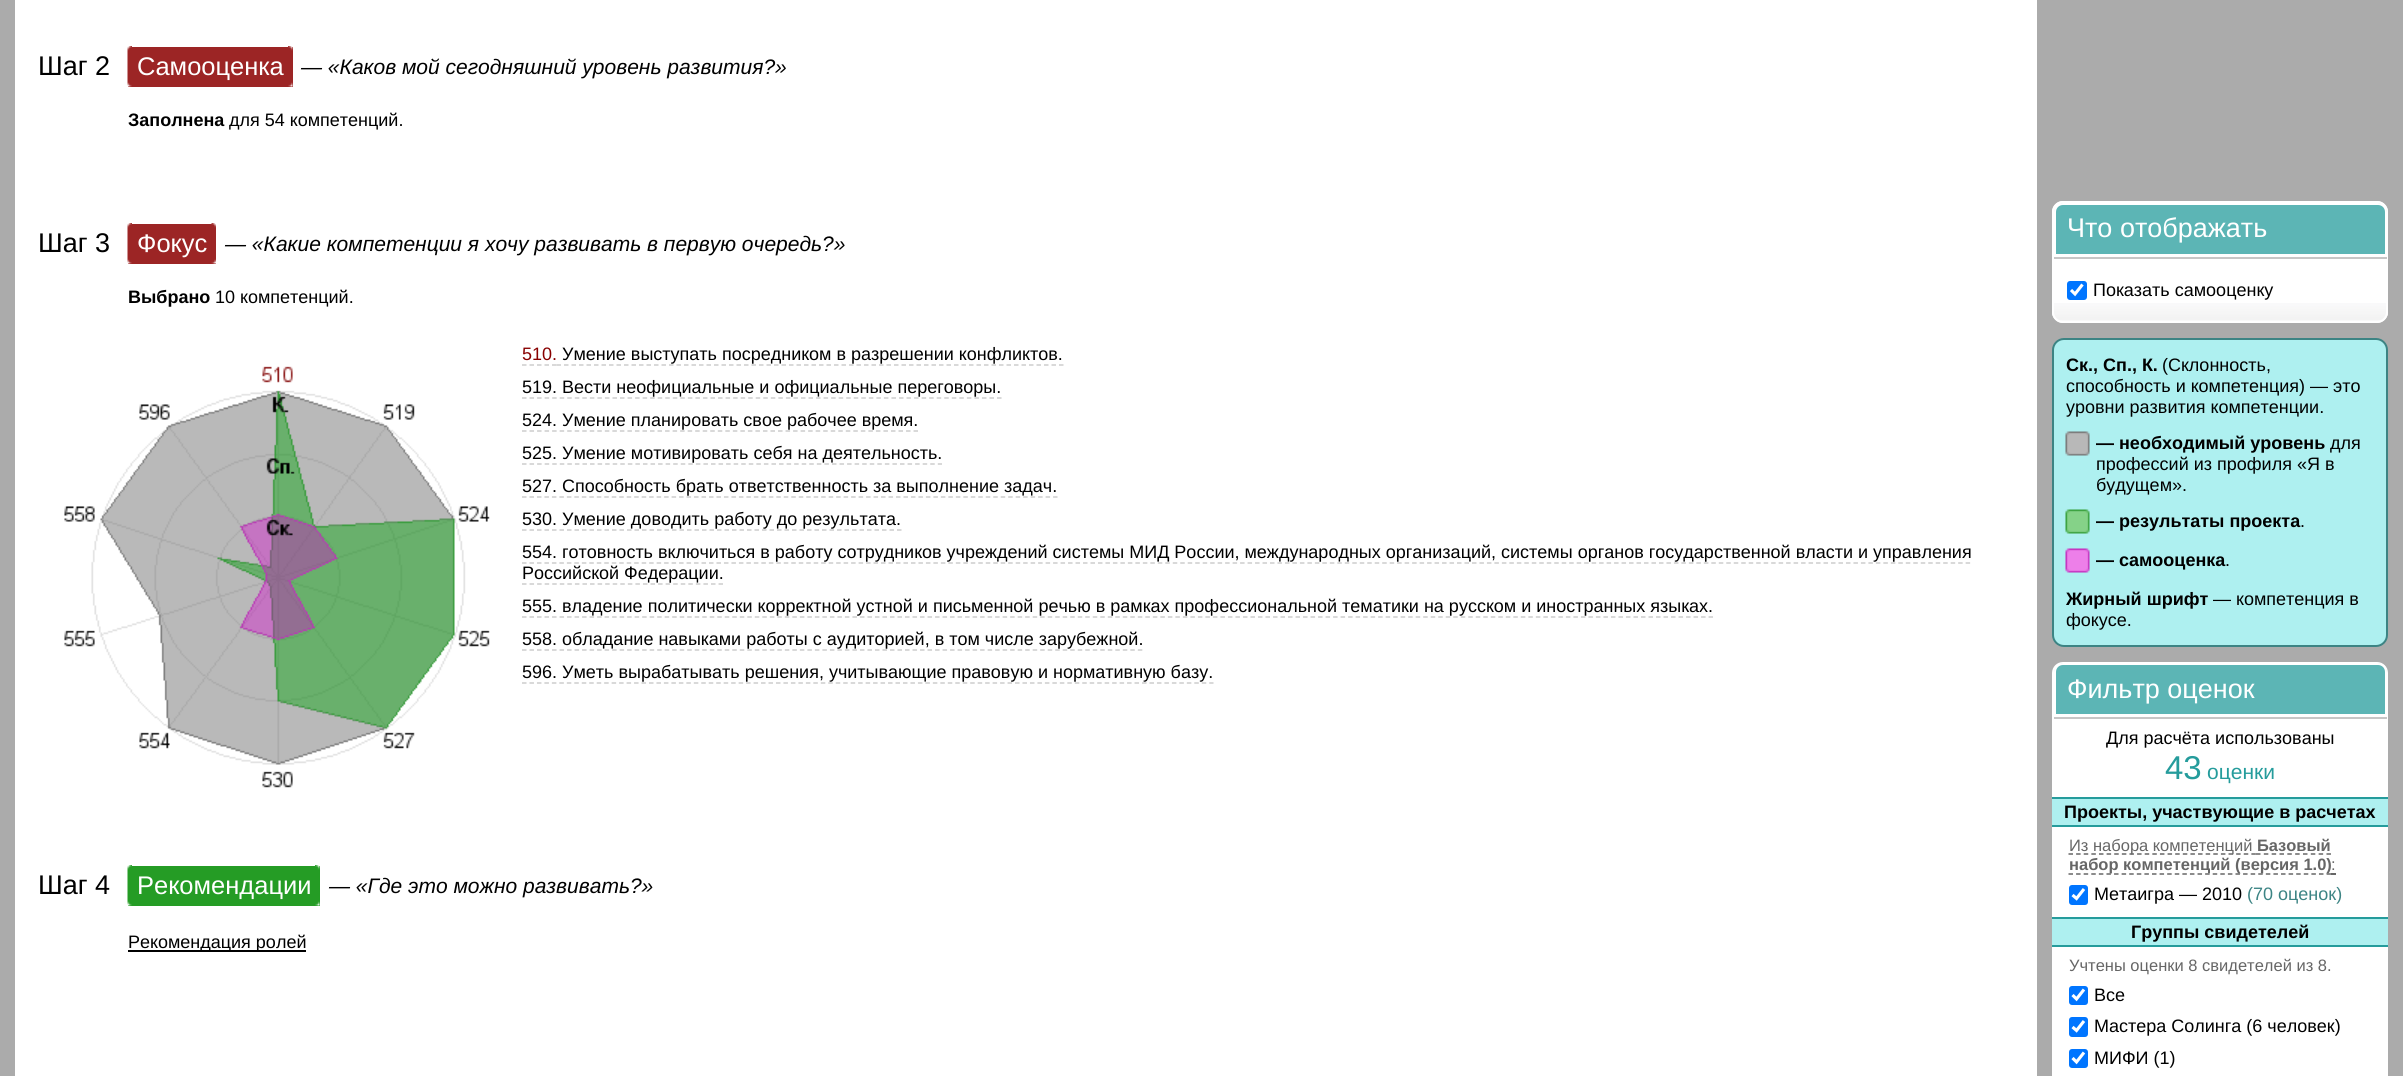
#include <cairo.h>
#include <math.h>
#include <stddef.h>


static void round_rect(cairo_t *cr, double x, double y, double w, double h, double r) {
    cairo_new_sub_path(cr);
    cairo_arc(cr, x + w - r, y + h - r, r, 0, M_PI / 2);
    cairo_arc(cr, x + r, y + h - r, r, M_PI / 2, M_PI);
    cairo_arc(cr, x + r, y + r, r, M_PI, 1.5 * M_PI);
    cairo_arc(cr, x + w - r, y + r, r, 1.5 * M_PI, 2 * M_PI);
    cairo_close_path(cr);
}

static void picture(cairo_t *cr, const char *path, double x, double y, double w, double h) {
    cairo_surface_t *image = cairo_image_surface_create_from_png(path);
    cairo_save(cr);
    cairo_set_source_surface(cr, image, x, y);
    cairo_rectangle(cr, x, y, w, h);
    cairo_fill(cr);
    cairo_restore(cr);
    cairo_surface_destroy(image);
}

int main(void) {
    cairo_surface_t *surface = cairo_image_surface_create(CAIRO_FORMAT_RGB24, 2403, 1076);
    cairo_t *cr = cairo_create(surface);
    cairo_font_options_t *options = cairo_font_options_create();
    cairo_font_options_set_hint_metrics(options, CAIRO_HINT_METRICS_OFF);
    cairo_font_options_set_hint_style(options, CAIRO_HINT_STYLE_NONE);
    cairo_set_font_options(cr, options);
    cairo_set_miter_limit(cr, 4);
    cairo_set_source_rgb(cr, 0.671, 0.671, 0.671);
    cairo_paint(cr);
    cairo_set_source_rgb(cr, 1, 1, 1);
    cairo_rectangle(cr, 15, 0, 2022, 1076);
    cairo_fill(cr);
    cairo_select_font_face(cr, "Liberation Sans", CAIRO_FONT_SLANT_NORMAL, CAIRO_FONT_WEIGHT_NORMAL);
    cairo_set_font_size(cr, 27);
    cairo_set_source_rgb(cr, 0, 0, 0);
    cairo_move_to(cr, 38, 75);
    cairo_show_text(cr, "Шаг 2");
    cairo_set_source_rgb(cr, 0.612, 0.145, 0.145);
    cairo_rectangle(cr, 128, 47, 165, 40);
    cairo_fill(cr);
    picture(cr, "img1.png", 127, 46, 5, 41);
    picture(cr, "img2.png", 288, 46, 5, 41);
    cairo_set_font_size(cr, 25.5);
    cairo_set_source_rgb(cr, 1, 1, 1);
    cairo_move_to(cr, 137, 75);
    cairo_show_text(cr, "Самооценка");
    cairo_select_font_face(cr, "Liberation Sans", CAIRO_FONT_SLANT_ITALIC, CAIRO_FONT_WEIGHT_NORMAL);
    cairo_set_font_size(cr, 21);
    cairo_set_source_rgb(cr, 0, 0, 0);
    cairo_move_to(cr, 301, 74);
    cairo_show_text(cr, "— «Каков мой сегодняшний уровень развития?»");
    cairo_select_font_face(cr, "Liberation Sans", CAIRO_FONT_SLANT_NORMAL, CAIRO_FONT_WEIGHT_BOLD);
    cairo_set_font_size(cr, 18);
    cairo_move_to(cr, 128, 126);
    cairo_show_text(cr, "Заполнена");
    cairo_select_font_face(cr, "Liberation Sans", CAIRO_FONT_SLANT_NORMAL, CAIRO_FONT_WEIGHT_NORMAL);
    cairo_move_to(cr, 229, 126);
    cairo_show_text(cr, "для 54 компетенций.");
    cairo_set_font_size(cr, 27);
    cairo_move_to(cr, 38, 252);
    cairo_show_text(cr, "Шаг 3");
    cairo_set_source_rgb(cr, 0.612, 0.145, 0.145);
    cairo_rectangle(cr, 128, 224, 88, 40);
    cairo_fill(cr);
    picture(cr, "img1.png", 127, 223, 5, 41);
    picture(cr, "img3.png", 211, 223, 5, 41);
    cairo_set_font_size(cr, 25.5);
    cairo_set_source_rgb(cr, 1, 1, 1);
    cairo_move_to(cr, 137, 252);
    cairo_show_text(cr, "Фокус");
    cairo_select_font_face(cr, "Liberation Sans", CAIRO_FONT_SLANT_ITALIC, CAIRO_FONT_WEIGHT_NORMAL);
    cairo_set_font_size(cr, 21);
    cairo_set_source_rgb(cr, 0, 0, 0);
    cairo_move_to(cr, 225, 251);
    cairo_show_text(cr, "— «Какие компетенции я хочу развивать в первую очередь?»");
    cairo_select_font_face(cr, "Liberation Sans", CAIRO_FONT_SLANT_NORMAL, CAIRO_FONT_WEIGHT_BOLD);
    cairo_set_font_size(cr, 18);
    cairo_move_to(cr, 128, 303);
    cairo_show_text(cr, "Выбрано");
    cairo_select_font_face(cr, "Liberation Sans", CAIRO_FONT_SLANT_NORMAL, CAIRO_FONT_WEIGHT_NORMAL);
    cairo_move_to(cr, 215, 303);
    cairo_show_text(cr, "10 компетенций.");
    picture(cr, "img4.png", 64, 366, 426, 422);
    cairo_set_source_rgb(cr, 0.533, 0, 0);
    cairo_move_to(cr, 522, 360);
    cairo_show_text(cr, "510.");
    cairo_new_path(cr);
    cairo_move_to(cr, 522, 365);
    cairo_line_to(cr, 556.5, 365);
    cairo_set_source_rgb(cr, 0.8, 0.8, 0.8);
    cairo_set_line_width(cr, 1.5);
    cairo_set_dash(cr, (double[]){4.5, 3}, 2, 0);
    cairo_stroke(cr);
    cairo_set_source_rgb(cr, 0, 0, 0);
    cairo_move_to(cr, 562, 360);
    cairo_show_text(cr, "Умение выступать посредником в разрешении конфликтов.");
    cairo_new_path(cr);
    cairo_move_to(cr, 556.5, 365);
    cairo_line_to(cr, 1063.5, 365);
    cairo_set_source_rgb(cr, 0.8, 0.8, 0.8);
    cairo_stroke(cr);
    cairo_set_source_rgb(cr, 0, 0, 0);
    cairo_move_to(cr, 522, 393);
    cairo_show_text(cr, "519. Вести неофициальные и официальные переговоры.");
    cairo_new_path(cr);
    cairo_move_to(cr, 522, 398);
    cairo_line_to(cr, 1002, 398);
    cairo_set_source_rgb(cr, 0.8, 0.8, 0.8);
    cairo_set_dash(cr, (double[]){4.5, 3.04}, 2, 0);
    cairo_stroke(cr);
    cairo_set_source_rgb(cr, 0, 0, 0);
    cairo_move_to(cr, 522, 426);
    cairo_show_text(cr, "524. Умение планировать свое рабочее время.");
    cairo_new_path(cr);
    cairo_move_to(cr, 522, 431);
    cairo_line_to(cr, 918, 431);
    cairo_set_source_rgb(cr, 0.8, 0.8, 0.8);
    cairo_set_dash(cr, (double[]){4.5, 3.03}, 2, 0);
    cairo_stroke(cr);
    cairo_set_source_rgb(cr, 0, 0, 0);
    cairo_move_to(cr, 522, 459);
    cairo_show_text(cr, "525. Умение мотивировать себя на деятельность.");
    cairo_new_path(cr);
    cairo_move_to(cr, 522, 464);
    cairo_line_to(cr, 942, 464);
    cairo_set_source_rgb(cr, 0.8, 0.8, 0.8);
    cairo_set_dash(cr, (double[]){4.5, 3.06}, 2, 0);
    cairo_stroke(cr);
    cairo_set_source_rgb(cr, 0, 0, 0);
    cairo_move_to(cr, 522, 492);
    cairo_show_text(cr, "527. Способность брать ответственность за выполнение задач.");
    cairo_new_path(cr);
    cairo_move_to(cr, 522, 497);
    cairo_line_to(cr, 1057.5, 497);
    cairo_set_source_rgb(cr, 0.8, 0.8, 0.8);
    cairo_set_dash(cr, (double[]){4.5, 2.98}, 2, 0);
    cairo_stroke(cr);
    cairo_set_source_rgb(cr, 0, 0, 0);
    cairo_move_to(cr, 522, 525);
    cairo_show_text(cr, "530. Умение доводить работу до результата.");
    cairo_new_path(cr);
    cairo_move_to(cr, 522, 530);
    cairo_line_to(cr, 901.5, 530);
    cairo_set_source_rgb(cr, 0.8, 0.8, 0.8);
    cairo_set_dash(cr, (double[]){4.5, 3}, 2, 0);
    cairo_stroke(cr);
    cairo_set_source_rgb(cr, 0, 0, 0);
    cairo_move_to(cr, 522, 558);
    cairo_show_text(cr, "554. готовность включиться в работу сотрудников учреждений системы МИД России, международных организаций, системы органов государственной власти и управления");
    cairo_new_path(cr);
    cairo_move_to(cr, 522, 563);
    cairo_line_to(cr, 1971, 563);
    cairo_set_source_rgb(cr, 0.8, 0.8, 0.8);
    cairo_set_dash(cr, (double[]){4.5, 2.98}, 2, 0);
    cairo_stroke(cr);
    cairo_set_source_rgb(cr, 0, 0, 0);
    cairo_move_to(cr, 522, 579);
    cairo_show_text(cr, "Российской Федерации.");
    cairo_new_path(cr);
    cairo_move_to(cr, 522, 584);
    cairo_line_to(cr, 723, 584);
    cairo_set_source_rgb(cr, 0.8, 0.8, 0.8);
    cairo_set_dash(cr, (double[]){4.5, 3.06}, 2, 0);
    cairo_stroke(cr);
    cairo_set_source_rgb(cr, 0, 0, 0);
    cairo_move_to(cr, 522, 612);
    cairo_show_text(cr, "555. владение политически корректной устной и письменной речью в рамках профессиональной тематики на русском и иностранных языках.");
    cairo_new_path(cr);
    cairo_move_to(cr, 522, 617);
    cairo_line_to(cr, 1713, 617);
    cairo_set_source_rgb(cr, 0.8, 0.8, 0.8);
    cairo_set_dash(cr, (double[]){4.5, 3.01}, 2, 0);
    cairo_stroke(cr);
    cairo_set_source_rgb(cr, 0, 0, 0);
    cairo_move_to(cr, 522, 645);
    cairo_show_text(cr, "558. обладание навыками работы с аудиторией, в том числе зарубежной.");
    cairo_new_path(cr);
    cairo_move_to(cr, 522, 650);
    cairo_line_to(cr, 1143, 650);
    cairo_set_source_rgb(cr, 0.8, 0.8, 0.8);
    cairo_stroke(cr);
    cairo_set_source_rgb(cr, 0, 0, 0);
    cairo_move_to(cr, 522, 678);
    cairo_show_text(cr, "596. Уметь вырабатывать решения, учитывающие правовую и нормативную базу.");
    cairo_new_path(cr);
    cairo_move_to(cr, 522, 683);
    cairo_line_to(cr, 1213.5, 683);
    cairo_set_source_rgb(cr, 0.8, 0.8, 0.8);
    cairo_set_dash(cr, (double[]){4.5, 2.97}, 2, 0);
    cairo_stroke(cr);
    cairo_set_font_size(cr, 27);
    cairo_set_source_rgb(cr, 0, 0, 0);
    cairo_move_to(cr, 38, 894);
    cairo_show_text(cr, "Шаг 4");
    cairo_set_source_rgb(cr, 0.145, 0.612, 0.145);
    cairo_rectangle(cr, 128, 866, 192, 40);
    cairo_fill(cr);
    picture(cr, "img5.png", 127, 865, 5, 41);
    picture(cr, "img6.png", 315, 865, 5, 41);
    cairo_set_font_size(cr, 25.5);
    cairo_set_source_rgb(cr, 1, 1, 1);
    cairo_move_to(cr, 137, 894);
    cairo_show_text(cr, "Рекомендации");
    cairo_select_font_face(cr, "Liberation Sans", CAIRO_FONT_SLANT_ITALIC, CAIRO_FONT_WEIGHT_NORMAL);
    cairo_set_font_size(cr, 21);
    cairo_set_source_rgb(cr, 0, 0, 0);
    cairo_move_to(cr, 329, 893);
    cairo_show_text(cr, "— «Где это можно развивать?»");
    cairo_rectangle(cr, 128, 950, 178, 2);
    cairo_fill(cr);
    cairo_select_font_face(cr, "Liberation Sans", CAIRO_FONT_SLANT_NORMAL, CAIRO_FONT_WEIGHT_NORMAL);
    cairo_set_font_size(cr, 18);
    cairo_move_to(cr, 128, 948);
    cairo_show_text(cr, "Рекомендация ролей");
    cairo_set_source_rgb(cr, 1, 1, 1);
    round_rect(cr, 2052, 201, 336, 122, 11);
    cairo_fill(cr);
    picture(cr, "img7.png", 2052, 303, 336, 18);
    round_rect(cr, 2053, 202, 334, 120, 10);
    cairo_set_line_width(cr, 2);
    cairo_set_dash(cr, NULL, 0, 0);
    cairo_stroke(cr);
    cairo_set_source_rgb(cr, 0.361, 0.71, 0.71);
    cairo_new_path(cr);
    cairo_move_to(cr, 2065, 203);
    cairo_line_to(cr, 2376, 203);
    cairo_curve_to(cr, 2382, 203, 2387, 208, 2387, 214);
    cairo_line_to(cr, 2387, 258);
    cairo_line_to(cr, 2054, 258);
    cairo_line_to(cr, 2054, 214);
    cairo_curve_to(cr, 2054, 208, 2059, 203, 2065, 203);
    cairo_close_path(cr);
    cairo_fill(cr);
    cairo_set_source_rgb(cr, 0.776, 0.776, 0.776);
    cairo_rectangle(cr, 2054, 257, 333, 2);
    cairo_fill(cr);
    cairo_new_path(cr);
    cairo_move_to(cr, 2063, 204);
    cairo_line_to(cr, 2378, 204);
    cairo_curve_to(cr, 2382.5, 204, 2386, 207.5, 2386, 212);
    cairo_line_to(cr, 2386, 256);
    cairo_line_to(cr, 2055, 256);
    cairo_line_to(cr, 2055, 212);
    cairo_curve_to(cr, 2055, 207.5, 2058.5, 204, 2063, 204);
    cairo_close_path(cr);
    cairo_set_source_rgb(cr, 1, 1, 1);
    cairo_stroke(cr);
    cairo_rectangle(cr, 2054, 254, 333, 1);
    cairo_fill(cr);
    cairo_set_font_size(cr, 27);
    cairo_move_to(cr, 2067, 237);
    cairo_show_text(cr, "Что отображать");
    cairo_set_source_rgb(cr, 0, 0.459, 1);
    round_rect(cr, 2067, 281, 20, 19, 3);
    cairo_fill(cr);
    cairo_new_path(cr);
    cairo_move_to(cr, 2071, 290);
    cairo_line_to(cr, 2075, 294);
    cairo_line_to(cr, 2082.5, 284.5);
    cairo_set_source_rgb(cr, 1, 1, 1);
    cairo_set_line_width(cr, 3.1);
    cairo_stroke(cr);
    cairo_set_font_size(cr, 18);
    cairo_set_source_rgb(cr, 0, 0, 0);
    cairo_move_to(cr, 2093, 296);
    cairo_show_text(cr, "Показать самооценку");
    cairo_set_source_rgb(cr, 0.682, 0.941, 0.941);
    round_rect(cr, 2053, 339, 334, 307, 11);
    cairo_fill_preserve(cr);
    cairo_set_source_rgb(cr, 0.235, 0.518, 0.518);
    cairo_set_line_width(cr, 2);
    cairo_stroke(cr);
    cairo_select_font_face(cr, "Liberation Sans", CAIRO_FONT_SLANT_NORMAL, CAIRO_FONT_WEIGHT_BOLD);
    cairo_set_source_rgb(cr, 0, 0, 0);
    cairo_move_to(cr, 2066, 371);
    cairo_show_text(cr, "Ск., Сп., К.");
    cairo_select_font_face(cr, "Liberation Sans", CAIRO_FONT_SLANT_NORMAL, CAIRO_FONT_WEIGHT_NORMAL);
    cairo_move_to(cr, 2162, 371);
    cairo_show_text(cr, "(Склонность,");
    cairo_move_to(cr, 2066, 392);
    cairo_show_text(cr, "способность и компетенция) — это");
    cairo_move_to(cr, 2066, 413);
    cairo_show_text(cr, "уровни развития компетенции.");
    picture(cr, "img8.png", 2065, 431, 25, 25);
    cairo_select_font_face(cr, "Liberation Sans", CAIRO_FONT_SLANT_NORMAL, CAIRO_FONT_WEIGHT_BOLD);
    cairo_move_to(cr, 2096, 449);
    cairo_show_text(cr, "— необходимый уровень");
    cairo_select_font_face(cr, "Liberation Sans", CAIRO_FONT_SLANT_NORMAL, CAIRO_FONT_WEIGHT_NORMAL);
    cairo_move_to(cr, 2330, 449);
    cairo_show_text(cr, "для");
    cairo_move_to(cr, 2096, 470);
    cairo_show_text(cr, "профессий из профиля «Я в");
    cairo_move_to(cr, 2096, 491);
    cairo_show_text(cr, "будущем».");
    picture(cr, "img9.png", 2065, 509, 25, 25);
    cairo_select_font_face(cr, "Liberation Sans", CAIRO_FONT_SLANT_NORMAL, CAIRO_FONT_WEIGHT_BOLD);
    cairo_move_to(cr, 2096, 527);
    cairo_show_text(cr, "— результаты проекта");
    cairo_select_font_face(cr, "Liberation Sans", CAIRO_FONT_SLANT_NORMAL, CAIRO_FONT_WEIGHT_NORMAL);
    cairo_move_to(cr, 2300, 527);
    cairo_show_text(cr, ".");
    picture(cr, "img10.png", 2065, 548, 25, 25);
    cairo_select_font_face(cr, "Liberation Sans", CAIRO_FONT_SLANT_NORMAL, CAIRO_FONT_WEIGHT_BOLD);
    cairo_move_to(cr, 2096, 566);
    cairo_show_text(cr, "— самооценка");
    cairo_select_font_face(cr, "Liberation Sans", CAIRO_FONT_SLANT_NORMAL, CAIRO_FONT_WEIGHT_NORMAL);
    cairo_move_to(cr, 2225, 566);
    cairo_show_text(cr, ".");
    cairo_select_font_face(cr, "Liberation Sans", CAIRO_FONT_SLANT_NORMAL, CAIRO_FONT_WEIGHT_BOLD);
    cairo_move_to(cr, 2066, 605);
    cairo_show_text(cr, "Жирный шрифт");
    cairo_select_font_face(cr, "Liberation Sans", CAIRO_FONT_SLANT_NORMAL, CAIRO_FONT_WEIGHT_NORMAL);
    cairo_move_to(cr, 2213, 605);
    cairo_show_text(cr, "— компетенция в");
    cairo_move_to(cr, 2066, 626);
    cairo_show_text(cr, "фокусе.");
    cairo_set_source_rgb(cr, 1, 1, 1);
    round_rect(cr, 2053, 663, 334, 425, 10);
    cairo_fill_preserve(cr);
    cairo_stroke(cr);
    cairo_set_source_rgb(cr, 0.361, 0.71, 0.71);
    cairo_new_path(cr);
    cairo_move_to(cr, 2065, 663);
    cairo_line_to(cr, 2376, 663);
    cairo_curve_to(cr, 2382, 663, 2387, 668, 2387, 674);
    cairo_line_to(cr, 2387, 719);
    cairo_line_to(cr, 2054, 719);
    cairo_line_to(cr, 2054, 674);
    cairo_curve_to(cr, 2054, 668, 2059, 663, 2065, 663);
    cairo_close_path(cr);
    cairo_fill(cr);
    cairo_set_source_rgb(cr, 0.776, 0.776, 0.776);
    cairo_rectangle(cr, 2054, 717, 333, 2);
    cairo_fill(cr);
    cairo_new_path(cr);
    cairo_move_to(cr, 2063, 664);
    cairo_line_to(cr, 2378, 664);
    cairo_curve_to(cr, 2382.5, 664, 2386, 667.5, 2386, 672);
    cairo_line_to(cr, 2386, 716);
    cairo_line_to(cr, 2055, 716);
    cairo_line_to(cr, 2055, 672);
    cairo_curve_to(cr, 2055, 667.5, 2058.5, 664, 2063, 664);
    cairo_close_path(cr);
    cairo_set_source_rgb(cr, 1, 1, 1);
    cairo_stroke(cr);
    cairo_rectangle(cr, 2054, 714, 333, 1);
    cairo_fill(cr);
    cairo_set_font_size(cr, 27);
    cairo_move_to(cr, 2067, 698);
    cairo_show_text(cr, "Фильтр оценок");
    cairo_set_font_size(cr, 18);
    cairo_set_source_rgb(cr, 0, 0, 0);
    cairo_move_to(cr, 2106, 744);
    cairo_show_text(cr, "Для расчёта использованы");
    cairo_set_font_size(cr, 33);
    cairo_set_source_rgb(cr, 0.145, 0.612, 0.612);
    cairo_move_to(cr, 2165, 779);
    cairo_show_text(cr, "43");
    cairo_set_font_size(cr, 21);
    cairo_move_to(cr, 2207, 779);
    cairo_show_text(cr, "оценки");
    cairo_set_source_rgb(cr, 0.682, 0.941, 0.941);
    cairo_rectangle(cr, 2052, 799, 336, 26);
    cairo_fill(cr);
    cairo_set_source_rgb(cr, 0.145, 0.612, 0.612);
    cairo_rectangle(cr, 2052, 797, 336, 2);
    cairo_fill(cr);
    cairo_rectangle(cr, 2052, 825, 336, 2);
    cairo_fill(cr);
    cairo_select_font_face(cr, "Liberation Sans", CAIRO_FONT_SLANT_NORMAL, CAIRO_FONT_WEIGHT_BOLD);
    cairo_set_font_size(cr, 18);
    cairo_set_source_rgb(cr, 0, 0, 0);
    cairo_move_to(cr, 2064, 818);
    cairo_show_text(cr, "Проекты, участвующие в расчетах");
    cairo_new_path(cr);
    cairo_move_to(cr, 2068.5, 854);
    cairo_line_to(cr, 2256, 854);
    cairo_set_source_rgb(cr, 0.4, 0.4, 0.4);
    cairo_set_line_width(cr, 1.5);
    cairo_set_dash(cr, (double[]){4.5, 3.12}, 2, 0);
    cairo_stroke(cr);
    cairo_select_font_face(cr, "Liberation Sans", CAIRO_FONT_SLANT_NORMAL, CAIRO_FONT_WEIGHT_NORMAL);
    cairo_set_font_size(cr, 16.5);
    cairo_move_to(cr, 2069, 851);
    cairo_show_text(cr, "Из набора компетенций");
    cairo_select_font_face(cr, "Liberation Sans", CAIRO_FONT_SLANT_NORMAL, CAIRO_FONT_WEIGHT_BOLD);
    cairo_move_to(cr, 2257, 851);
    cairo_show_text(cr, "Базовый");
    cairo_new_path(cr);
    cairo_move_to(cr, 2256, 854);
    cairo_line_to(cr, 2331, 854);
    cairo_set_dash(cr, (double[]){4.5, 3.33}, 2, 0);
    cairo_stroke(cr);
    cairo_new_path(cr);
    cairo_move_to(cr, 2068.5, 874);
    cairo_line_to(cr, 2331, 874);
    cairo_set_dash(cr, (double[]){4.5, 3.09}, 2, 0);
    cairo_stroke(cr);
    cairo_move_to(cr, 2069, 870);
    cairo_show_text(cr, "набор компетенций (версия 1.0)");
    cairo_rectangle(cr, 2331, 873, 5, 2);
    cairo_fill(cr);
    cairo_select_font_face(cr, "Liberation Sans", CAIRO_FONT_SLANT_NORMAL, CAIRO_FONT_WEIGHT_NORMAL);
    cairo_move_to(cr, 2331, 870);
    cairo_show_text(cr, ":");
    cairo_set_source_rgb(cr, 0, 0.459, 1);
    round_rect(cr, 2069, 885, 19, 20, 3);
    cairo_fill(cr);
    cairo_new_path(cr);
    cairo_move_to(cr, 2072.5, 895);
    cairo_line_to(cr, 2076.5, 898.5);
    cairo_line_to(cr, 2084, 889);
    cairo_set_source_rgb(cr, 1, 1, 1);
    cairo_set_line_width(cr, 3.1);
    cairo_set_dash(cr, NULL, 0, 0);
    cairo_stroke(cr);
    cairo_set_font_size(cr, 18);
    cairo_set_source_rgb(cr, 0, 0, 0);
    cairo_move_to(cr, 2094, 900);
    cairo_show_text(cr, "Метаигра — 2010");
    cairo_set_source_rgb(cr, 0.235, 0.518, 0.518);
    cairo_move_to(cr, 2247, 900);
    cairo_show_text(cr, "(70 оценок)");
    cairo_set_source_rgb(cr, 0.682, 0.941, 0.941);
    cairo_rectangle(cr, 2052, 919, 336, 26);
    cairo_fill(cr);
    cairo_set_source_rgb(cr, 0.145, 0.612, 0.612);
    cairo_rectangle(cr, 2052, 917, 336, 2);
    cairo_fill(cr);
    cairo_rectangle(cr, 2052, 945, 336, 2);
    cairo_fill(cr);
    cairo_select_font_face(cr, "Liberation Sans", CAIRO_FONT_SLANT_NORMAL, CAIRO_FONT_WEIGHT_BOLD);
    cairo_set_source_rgb(cr, 0, 0, 0);
    cairo_move_to(cr, 2131, 938);
    cairo_show_text(cr, "Группы свидетелей");
    cairo_select_font_face(cr, "Liberation Sans", CAIRO_FONT_SLANT_NORMAL, CAIRO_FONT_WEIGHT_NORMAL);
    cairo_set_font_size(cr, 16.5);
    cairo_set_source_rgb(cr, 0.4, 0.4, 0.4);
    cairo_move_to(cr, 2069, 971);
    cairo_show_text(cr, "Учтены оценки 8 свидетелей из 8.");
    cairo_set_source_rgb(cr, 0, 0.459, 1);
    round_rect(cr, 2069, 986, 19, 19, 3);
    cairo_fill(cr);
    cairo_new_path(cr);
    cairo_move_to(cr, 2072.5, 995);
    cairo_line_to(cr, 2076.5, 999);
    cairo_line_to(cr, 2084, 989.5);
    cairo_set_source_rgb(cr, 1, 1, 1);
    cairo_stroke(cr);
    cairo_set_font_size(cr, 18);
    cairo_set_source_rgb(cr, 0, 0, 0);
    cairo_move_to(cr, 2094, 1001);
    cairo_show_text(cr, "Все");
    cairo_set_source_rgb(cr, 0, 0.459, 1);
    round_rect(cr, 2069, 1017, 19, 20, 3);
    cairo_fill(cr);
    cairo_new_path(cr);
    cairo_move_to(cr, 2072.5, 1027);
    cairo_line_to(cr, 2076.5, 1030.5);
    cairo_line_to(cr, 2084, 1021);
    cairo_set_source_rgb(cr, 1, 1, 1);
    cairo_stroke(cr);
    cairo_set_source_rgb(cr, 0, 0, 0);
    cairo_move_to(cr, 2094, 1032);
    cairo_show_text(cr, "Мастера Солинга (6 человек)");
    cairo_set_source_rgb(cr, 0, 0.459, 1);
    round_rect(cr, 2069, 1049, 19, 19, 3);
    cairo_fill(cr);
    cairo_new_path(cr);
    cairo_move_to(cr, 2072.5, 1058);
    cairo_line_to(cr, 2076.5, 1062);
    cairo_line_to(cr, 2084, 1052.5);
    cairo_set_source_rgb(cr, 1, 1, 1);
    cairo_stroke(cr);
    cairo_set_source_rgb(cr, 0, 0, 0);
    cairo_move_to(cr, 2094, 1064);
    cairo_show_text(cr, "МИФИ (1)");
    cairo_surface_write_to_png(surface, "page.png");
    cairo_font_options_destroy(options);
    cairo_destroy(cr);
    cairo_surface_destroy(surface);
    return 0;
}
